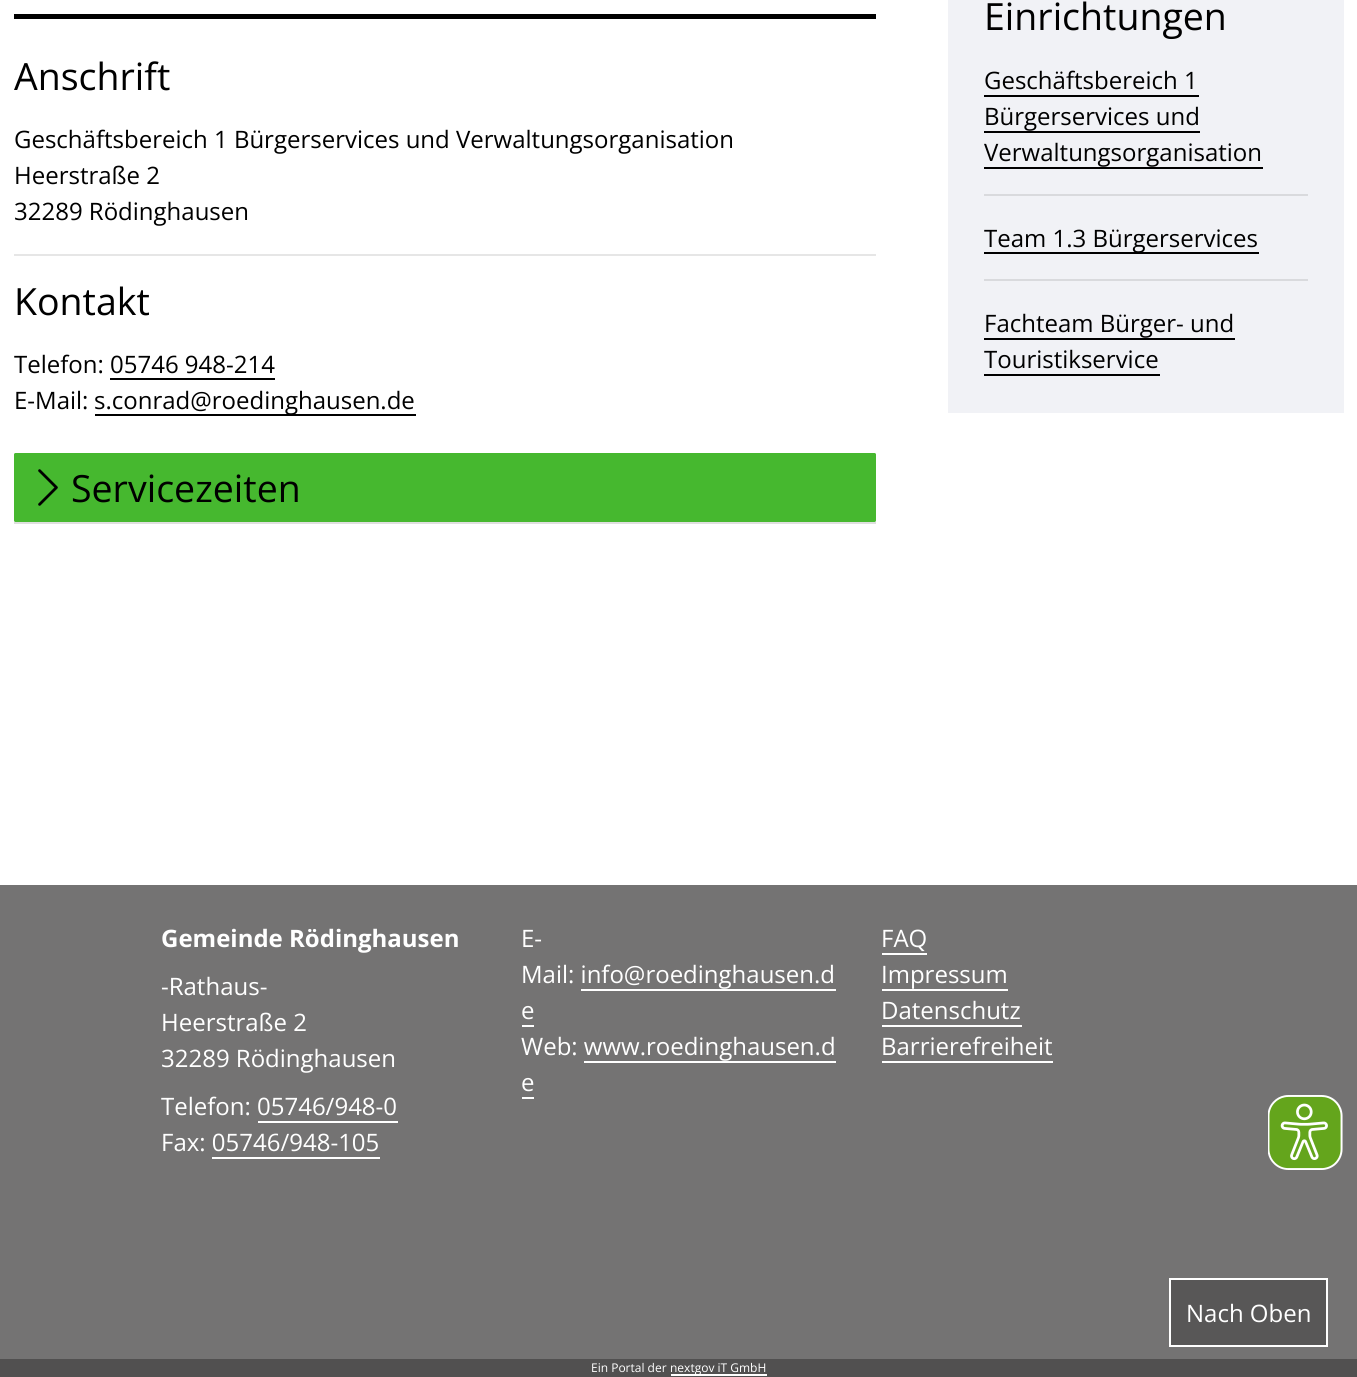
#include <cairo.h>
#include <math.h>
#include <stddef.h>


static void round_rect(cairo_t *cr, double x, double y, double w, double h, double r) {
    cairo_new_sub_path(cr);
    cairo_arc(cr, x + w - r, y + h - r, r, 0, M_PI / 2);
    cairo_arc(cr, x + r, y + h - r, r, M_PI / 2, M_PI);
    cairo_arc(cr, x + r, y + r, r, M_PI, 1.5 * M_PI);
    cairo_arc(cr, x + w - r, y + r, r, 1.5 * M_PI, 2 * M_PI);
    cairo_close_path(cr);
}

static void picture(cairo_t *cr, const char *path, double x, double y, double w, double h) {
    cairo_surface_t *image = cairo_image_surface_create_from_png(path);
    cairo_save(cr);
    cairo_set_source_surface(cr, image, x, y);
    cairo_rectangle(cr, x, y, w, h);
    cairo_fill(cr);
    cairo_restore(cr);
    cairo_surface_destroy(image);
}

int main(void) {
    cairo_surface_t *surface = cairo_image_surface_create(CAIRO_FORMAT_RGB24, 1357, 1377);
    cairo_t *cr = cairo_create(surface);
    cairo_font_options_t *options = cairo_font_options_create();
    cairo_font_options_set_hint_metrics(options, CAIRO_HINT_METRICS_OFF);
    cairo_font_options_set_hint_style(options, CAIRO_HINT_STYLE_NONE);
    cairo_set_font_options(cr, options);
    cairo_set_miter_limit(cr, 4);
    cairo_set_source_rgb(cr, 1, 1, 1);
    cairo_paint(cr);
    cairo_set_source_rgb(cr, 0, 0, 0);
    cairo_rectangle(cr, 14, 14, 862, 5);
    cairo_fill(cr);
    cairo_select_font_face(cr, "Open Sans", CAIRO_FONT_SLANT_NORMAL, CAIRO_FONT_WEIGHT_NORMAL);
    cairo_set_font_size(cr, 37.5);
    cairo_move_to(cr, 14, 90);
    cairo_show_text(cr, "Anschrift");
    cairo_set_font_size(cr, 24);
    cairo_move_to(cr, 14, 148);
    cairo_show_text(cr, "Geschäftsbereich 1 Bürgerservices und Verwaltungsorganisation");
    cairo_move_to(cr, 14, 184);
    cairo_show_text(cr, "Heerstraße 2");
    cairo_move_to(cr, 14, 220);
    cairo_show_text(cr, "32289 Rödinghausen");
    cairo_set_source_rgb(cr, 0.902, 0.902, 0.902);
    cairo_rectangle(cr, 14, 254, 862, 2);
    cairo_fill(cr);
    cairo_set_font_size(cr, 37.5);
    cairo_set_source_rgb(cr, 0, 0, 0);
    cairo_move_to(cr, 14, 315);
    cairo_show_text(cr, "Kontakt");
    cairo_set_font_size(cr, 24);
    cairo_move_to(cr, 14, 373);
    cairo_show_text(cr, "Telefon: 05746 948-214");
    cairo_rectangle(cr, 110, 378, 165, 2);
    cairo_fill(cr);
    cairo_move_to(cr, 14, 409);
    cairo_show_text(cr, "E-Mail:");
    cairo_rectangle(cr, 95, 414, 321, 2);
    cairo_fill(cr);
    cairo_move_to(cr, 94, 409);
    cairo_show_text(cr, "s.conrad@roedinghausen.de");
    cairo_set_source_rgb(cr, 0.875, 0.875, 0.875);
    cairo_rectangle(cr, 14, 522, 862, 2);
    cairo_fill(cr);
    cairo_set_source_rgb(cr, 0.275, 0.722, 0.184);
    round_rect(cr, 14, 453, 862, 69, 1.5);
    cairo_fill(cr);
    picture(cr, "img1.png", 38, 469, 20, 37);
    cairo_set_font_size(cr, 37.5);
    cairo_set_source_rgb(cr, 0, 0, 0);
    cairo_move_to(cr, 71, 502);
    cairo_show_text(cr, "Servicezeiten");
    cairo_set_source_rgb(cr, 0.945, 0.949, 0.961);
    cairo_rectangle(cr, 948, 0, 396, 413);
    cairo_fill(cr);
    cairo_set_source_rgb(cr, 0, 0, 0);
    cairo_move_to(cr, 984, 30);
    cairo_show_text(cr, "Einrichtungen");
    cairo_set_font_size(cr, 24);
    cairo_move_to(cr, 984, 89);
    cairo_show_text(cr, "Geschäftsbereich 1");
    cairo_rectangle(cr, 984, 95, 215, 2);
    cairo_fill(cr);
    cairo_move_to(cr, 984, 125);
    cairo_show_text(cr, "Bürgerservices und");
    cairo_rectangle(cr, 984, 131, 216, 2);
    cairo_fill(cr);
    cairo_move_to(cr, 984, 161);
    cairo_show_text(cr, "Verwaltungsorganisation");
    cairo_rectangle(cr, 984, 167, 279, 2);
    cairo_fill(cr);
    cairo_set_source_rgb(cr, 0.851, 0.855, 0.867);
    cairo_rectangle(cr, 984, 194, 324, 2);
    cairo_fill(cr);
    cairo_set_source_rgb(cr, 0, 0, 0);
    cairo_rectangle(cr, 984, 252, 275, 2);
    cairo_fill(cr);
    cairo_move_to(cr, 984, 247);
    cairo_show_text(cr, "Team 1.3 Bürgerservices");
    cairo_set_source_rgb(cr, 0.851, 0.855, 0.867);
    cairo_rectangle(cr, 984, 279, 324, 2);
    cairo_fill(cr);
    cairo_set_source_rgb(cr, 0, 0, 0);
    cairo_move_to(cr, 984, 332);
    cairo_show_text(cr, "Fachteam Bürger- und");
    cairo_rectangle(cr, 984, 338, 251, 2);
    cairo_fill(cr);
    cairo_move_to(cr, 984, 368);
    cairo_show_text(cr, "Touristikservice");
    cairo_rectangle(cr, 984, 374, 176, 2);
    cairo_fill(cr);
    cairo_set_source_rgb(cr, 0.455, 0.451, 0.451);
    cairo_rectangle(cr, 0, 885, 1357, 474);
    cairo_fill(cr);
    cairo_select_font_face(cr, "Open Sans", CAIRO_FONT_SLANT_NORMAL, CAIRO_FONT_WEIGHT_BOLD);
    cairo_set_source_rgb(cr, 1, 1, 1);
    cairo_move_to(cr, 161, 947);
    cairo_show_text(cr, "Gemeinde Rödinghausen");
    cairo_select_font_face(cr, "Open Sans", CAIRO_FONT_SLANT_NORMAL, CAIRO_FONT_WEIGHT_NORMAL);
    cairo_move_to(cr, 161, 995);
    cairo_show_text(cr, "-Rathaus-");
    cairo_move_to(cr, 161, 1031);
    cairo_show_text(cr, "Heerstraße 2");
    cairo_move_to(cr, 161, 1067);
    cairo_show_text(cr, "32289 Rödinghausen");
    cairo_move_to(cr, 161, 1115);
    cairo_show_text(cr, "Telefon: 05746/948-0");
    cairo_rectangle(cr, 258, 1121, 140, 2);
    cairo_fill(cr);
    cairo_move_to(cr, 161, 1151);
    cairo_show_text(cr, "Fax: 05746/948-105");
    cairo_rectangle(cr, 212, 1157, 168, 2);
    cairo_fill(cr);
    cairo_move_to(cr, 521, 947);
    cairo_show_text(cr, "E-");
    cairo_move_to(cr, 521, 983);
    cairo_show_text(cr, "Mail: info@roedinghausen.d");
    cairo_move_to(cr, 521, 1019);
    cairo_show_text(cr, "e");
    cairo_rectangle(cr, 581, 989, 255, 2);
    cairo_fill(cr);
    cairo_rectangle(cr, 522, 1025, 12, 2);
    cairo_fill(cr);
    cairo_move_to(cr, 521, 1055);
    cairo_show_text(cr, "Web: www.roedinghausen.d");
    cairo_move_to(cr, 521, 1091);
    cairo_show_text(cr, "e");
    cairo_rectangle(cr, 584, 1061, 252, 2);
    cairo_fill(cr);
    cairo_rectangle(cr, 522, 1097, 12, 2);
    cairo_fill(cr);
    cairo_move_to(cr, 881, 947);
    cairo_show_text(cr, "FAQ");
    cairo_rectangle(cr, 882, 953, 45, 2);
    cairo_fill(cr);
    cairo_move_to(cr, 881, 983);
    cairo_show_text(cr, "Impressum");
    cairo_rectangle(cr, 882, 989, 126, 2);
    cairo_fill(cr);
    cairo_move_to(cr, 881, 1019);
    cairo_show_text(cr, "Datenschutz");
    cairo_rectangle(cr, 882, 1025, 140, 2);
    cairo_fill(cr);
    cairo_move_to(cr, 881, 1055);
    cairo_show_text(cr, "Barrierefreiheit");
    cairo_rectangle(cr, 882, 1061, 171, 2);
    cairo_fill(cr);
    cairo_set_source_rgb(cr, 0.318, 0.314, 0.314);
    cairo_rectangle(cr, 0, 1359, 1357, 18);
    cairo_fill(cr);
    cairo_set_font_size(cr, 12);
    cairo_set_source_rgb(cr, 1, 1, 1);
    cairo_move_to(cr, 591, 1372);
    cairo_show_text(cr, "Ein Portal der");
    cairo_rectangle(cr, 671, 1374, 96, 2);
    cairo_fill(cr);
    cairo_move_to(cr, 670, 1372);
    cairo_show_text(cr, "nextgov iT GmbH");
    picture(cr, "img2.png", 1268, 1095, 75, 75);
    cairo_set_source_rgb(cr, 0.345, 0.341, 0.341);
    cairo_rectangle(cr, 1170, 1279, 157, 67);
    cairo_fill_preserve(cr);
    cairo_set_source_rgb(cr, 1, 1, 1);
    cairo_stroke(cr);
    cairo_set_font_size(cr, 24);
    cairo_move_to(cr, 1186, 1322);
    cairo_show_text(cr, "Nach Oben");
    cairo_surface_write_to_png(surface, "page.png");
    cairo_font_options_destroy(options);
    cairo_destroy(cr);
    cairo_surface_destroy(surface);
    return 0;
}
